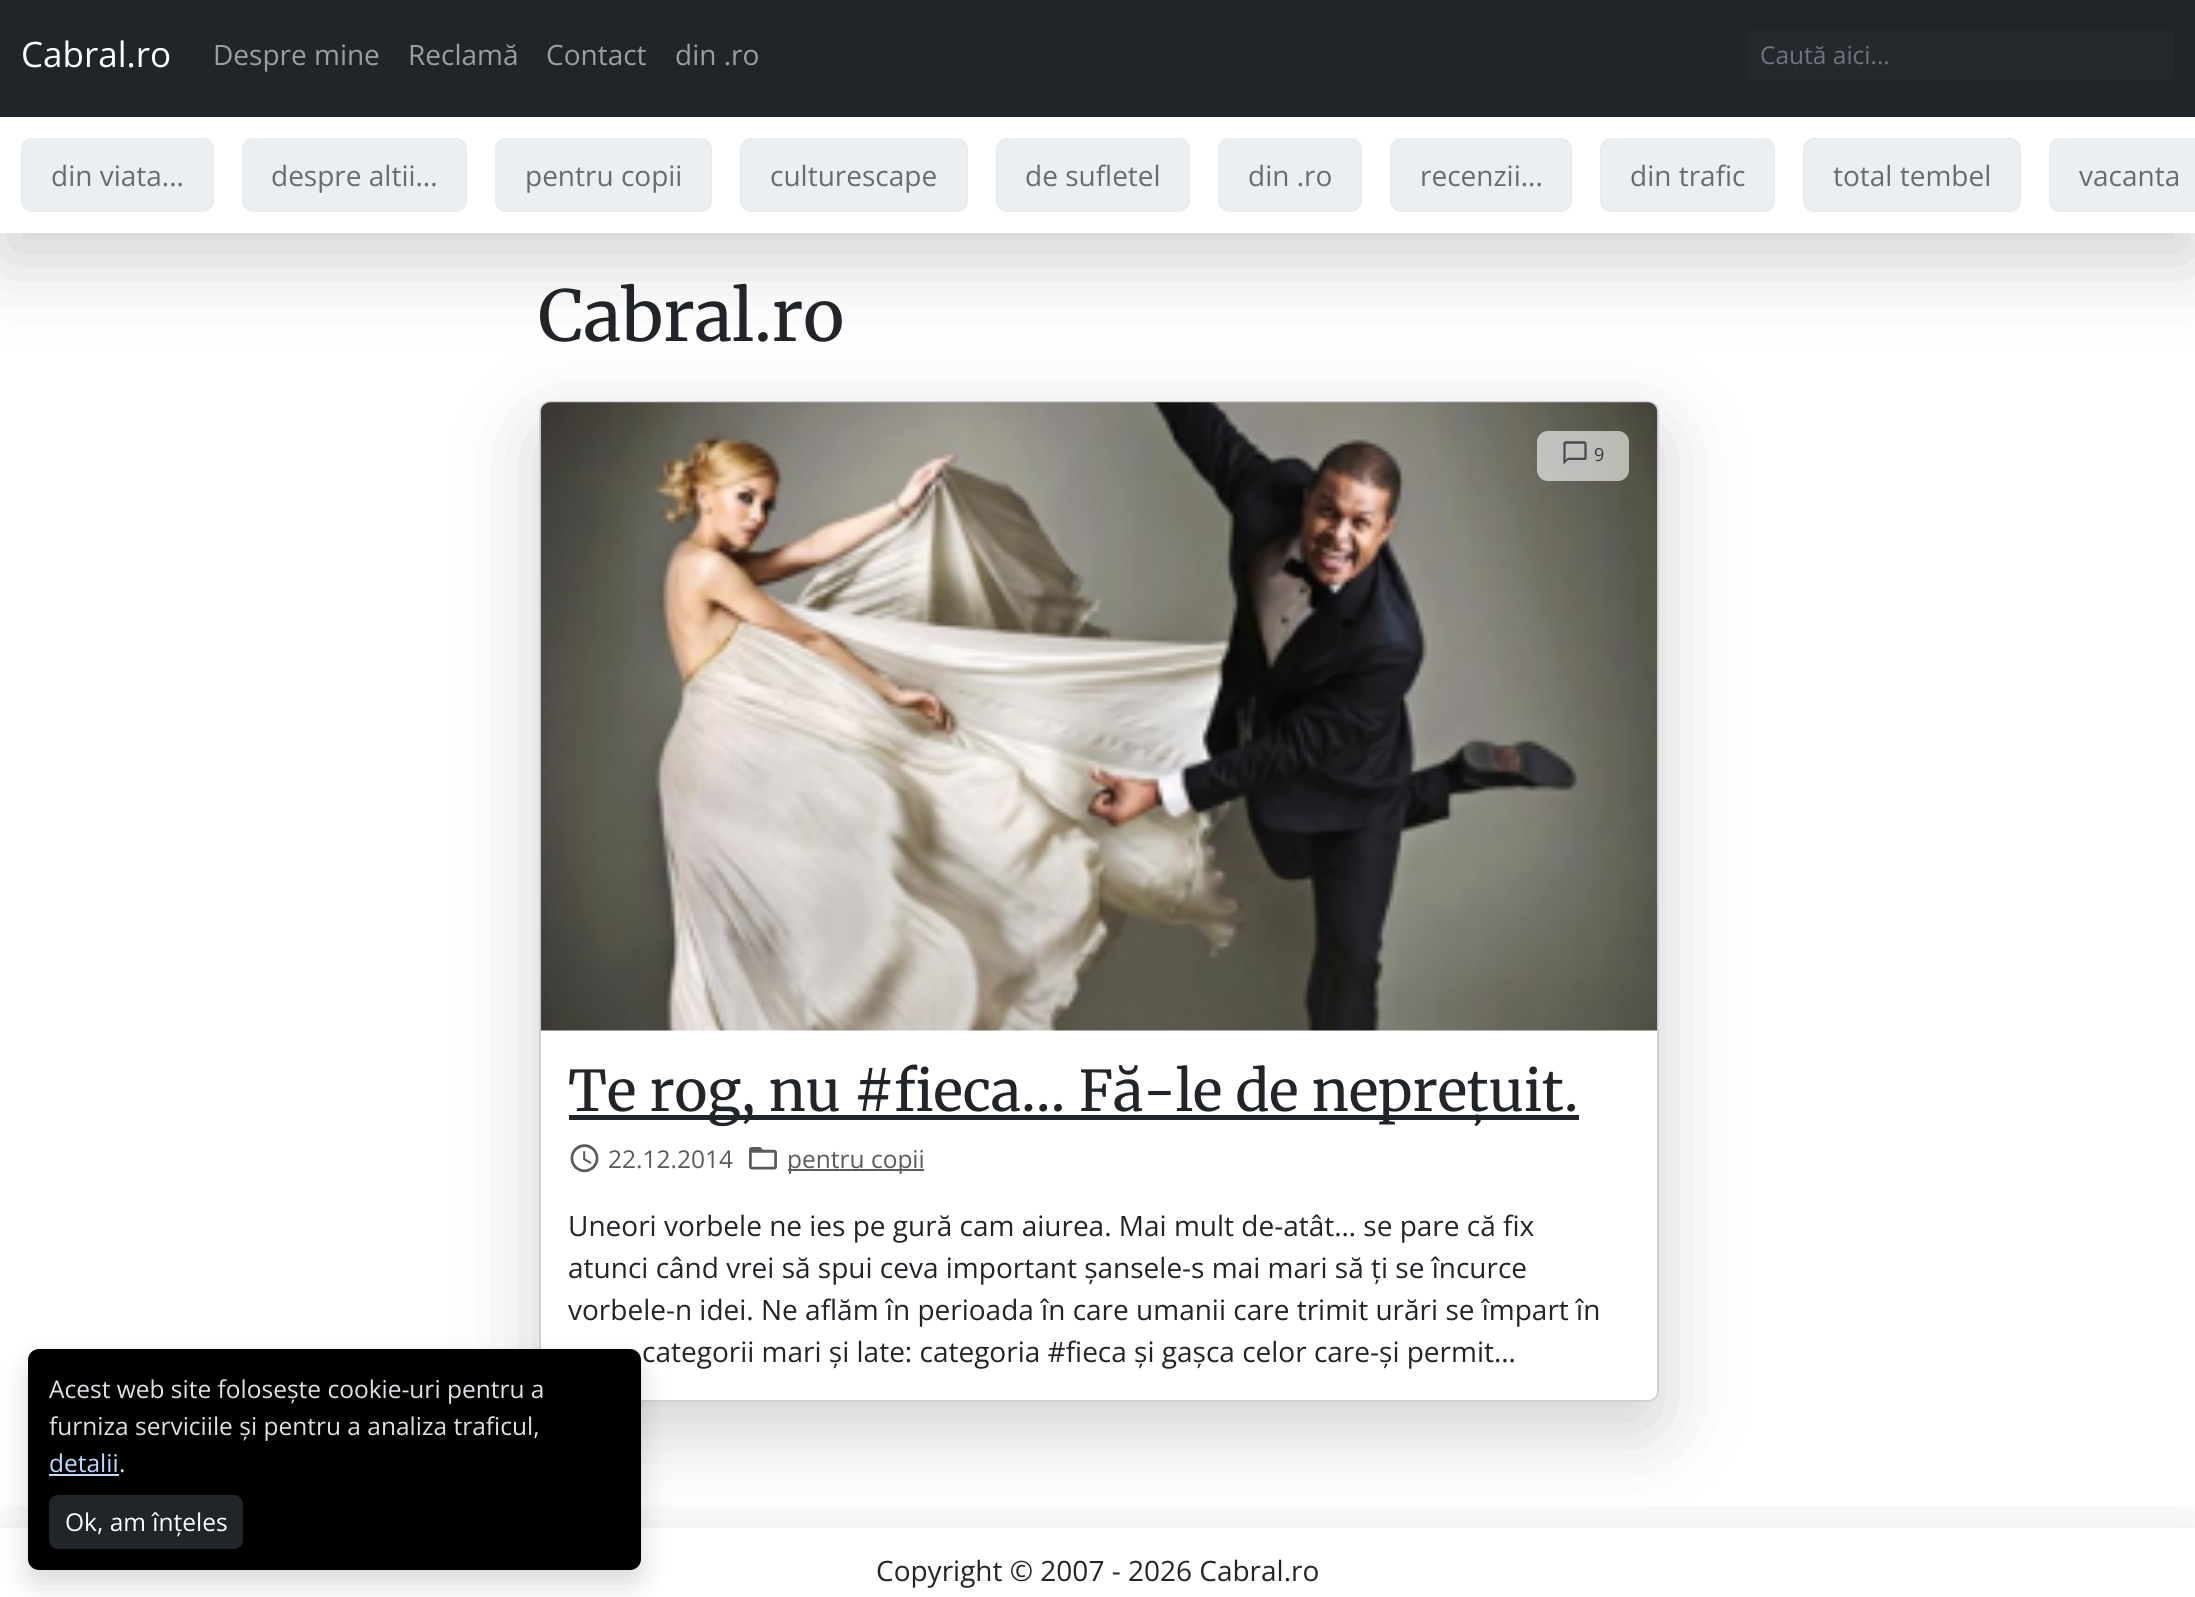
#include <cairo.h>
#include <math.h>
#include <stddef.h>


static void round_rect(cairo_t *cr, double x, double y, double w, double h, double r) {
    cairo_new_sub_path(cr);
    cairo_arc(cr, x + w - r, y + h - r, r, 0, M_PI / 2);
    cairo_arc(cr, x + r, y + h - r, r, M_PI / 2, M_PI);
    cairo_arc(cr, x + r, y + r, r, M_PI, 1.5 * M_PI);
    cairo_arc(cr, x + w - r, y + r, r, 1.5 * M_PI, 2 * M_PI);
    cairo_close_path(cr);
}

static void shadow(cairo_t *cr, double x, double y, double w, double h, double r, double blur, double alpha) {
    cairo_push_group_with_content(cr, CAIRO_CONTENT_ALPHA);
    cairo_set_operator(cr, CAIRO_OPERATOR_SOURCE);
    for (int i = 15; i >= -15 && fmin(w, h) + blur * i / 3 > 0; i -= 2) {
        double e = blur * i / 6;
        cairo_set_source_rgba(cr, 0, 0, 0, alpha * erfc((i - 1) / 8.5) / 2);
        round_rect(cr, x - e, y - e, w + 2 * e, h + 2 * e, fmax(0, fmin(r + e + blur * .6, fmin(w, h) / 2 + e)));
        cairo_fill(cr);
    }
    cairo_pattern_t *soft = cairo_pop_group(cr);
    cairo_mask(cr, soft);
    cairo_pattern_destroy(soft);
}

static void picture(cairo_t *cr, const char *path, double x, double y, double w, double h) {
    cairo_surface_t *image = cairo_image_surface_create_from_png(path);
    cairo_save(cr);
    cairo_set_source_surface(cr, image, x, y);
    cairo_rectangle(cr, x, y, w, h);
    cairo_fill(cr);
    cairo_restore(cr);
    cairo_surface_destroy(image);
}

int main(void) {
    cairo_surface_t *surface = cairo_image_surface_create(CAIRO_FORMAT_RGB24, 2195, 1597);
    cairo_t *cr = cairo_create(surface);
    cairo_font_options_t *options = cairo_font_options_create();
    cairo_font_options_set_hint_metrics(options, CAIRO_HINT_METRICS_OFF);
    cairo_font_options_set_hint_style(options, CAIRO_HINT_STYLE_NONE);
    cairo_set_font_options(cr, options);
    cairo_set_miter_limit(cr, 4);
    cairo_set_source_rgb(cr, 1, 1, 1);
    cairo_paint(cr);
    cairo_save(cr);
    cairo_set_fill_rule(cr, CAIRO_FILL_RULE_EVEN_ODD);
    cairo_new_path(cr);
    cairo_move_to(cr, 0, 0);
    cairo_line_to(cr, 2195, 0);
    cairo_line_to(cr, 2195, 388);
    cairo_line_to(cr, 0, 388);
    cairo_close_path(cr);
    cairo_move_to(cr, 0, -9);
    cairo_line_to(cr, 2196, -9);
    cairo_line_to(cr, 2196, 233);
    cairo_line_to(cr, 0, 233);
    cairo_close_path(cr);
    cairo_clip(cr);
    cairo_set_source_rgb(cr, 0, 0, 0);
    shadow(cr, 0, 19, 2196, 242, 0, 42, 0.18);
    cairo_restore(cr);
    cairo_set_source_rgb(cr, 0.129, 0.145, 0.161);
    cairo_rectangle(cr, 0, 0, 2195, 117);
    cairo_fill(cr);
    cairo_select_font_face(cr, "Open Sans", CAIRO_FONT_SLANT_NORMAL, CAIRO_FONT_WEIGHT_NORMAL);
    cairo_set_font_size(cr, 35);
    cairo_set_source_rgb(cr, 1, 1, 1);
    cairo_move_to(cr, 21, 67);
    cairo_show_text(cr, "Cabral.ro");
    cairo_set_font_size(cr, 28);
    cairo_set_source_rgb(cr, 0.608, 0.616, 0.624);
    cairo_move_to(cr, 213, 65);
    cairo_show_text(cr, "Despre mine");
    cairo_move_to(cr, 408, 65);
    cairo_show_text(cr, "Reclamă");
    cairo_move_to(cr, 546, 65);
    cairo_show_text(cr, "Contact");
    cairo_move_to(cr, 675, 65);
    cairo_show_text(cr, "din .ro");
    cairo_set_source_rgb(cr, 0.145, 0.161, 0.176);
    round_rect(cr, 1747, 30, 427, 51, 7);
    cairo_fill(cr);
    cairo_set_font_size(cr, 24.5);
    cairo_set_source_rgb(cr, 0.424, 0.459, 0.49);
    cairo_move_to(cr, 1760, 64);
    cairo_show_text(cr, "Caută aici...");
    cairo_set_source_rgb(cr, 0.925, 0.937, 0.949);
    round_rect(cr, 22, 139, 191, 72, 10);
    cairo_fill_preserve(cr);
    cairo_set_source_rgb(cr, 0.914, 0.925, 0.937);
    cairo_stroke(cr);
    cairo_set_font_size(cr, 28);
    cairo_set_source_rgb(cr, 0.408, 0.424, 0.435);
    cairo_move_to(cr, 51, 186);
    cairo_show_text(cr, "din viata...");
    cairo_set_source_rgb(cr, 0.925, 0.937, 0.949);
    round_rect(cr, 243, 139, 223, 72, 10);
    cairo_fill_preserve(cr);
    cairo_set_source_rgb(cr, 0.914, 0.925, 0.937);
    cairo_stroke(cr);
    cairo_set_source_rgb(cr, 0.408, 0.424, 0.435);
    cairo_move_to(cr, 271, 186);
    cairo_show_text(cr, "despre altii...");
    cairo_set_source_rgb(cr, 0.925, 0.937, 0.949);
    round_rect(cr, 496, 139, 215, 72, 10);
    cairo_fill_preserve(cr);
    cairo_set_source_rgb(cr, 0.914, 0.925, 0.937);
    cairo_stroke(cr);
    cairo_set_source_rgb(cr, 0.408, 0.424, 0.435);
    cairo_move_to(cr, 525, 186);
    cairo_show_text(cr, "pentru copii");
    cairo_set_source_rgb(cr, 0.925, 0.937, 0.949);
    round_rect(cr, 741, 139, 226, 72, 10);
    cairo_fill_preserve(cr);
    cairo_set_source_rgb(cr, 0.914, 0.925, 0.937);
    cairo_stroke(cr);
    cairo_set_source_rgb(cr, 0.408, 0.424, 0.435);
    cairo_move_to(cr, 770, 186);
    cairo_show_text(cr, "culturescape");
    cairo_set_source_rgb(cr, 0.925, 0.937, 0.949);
    round_rect(cr, 997, 139, 192, 72, 10);
    cairo_fill_preserve(cr);
    cairo_set_source_rgb(cr, 0.914, 0.925, 0.937);
    cairo_stroke(cr);
    cairo_set_source_rgb(cr, 0.408, 0.424, 0.435);
    cairo_move_to(cr, 1025, 186);
    cairo_show_text(cr, "de sufletel");
    cairo_set_source_rgb(cr, 0.925, 0.937, 0.949);
    round_rect(cr, 1219, 139, 142, 72, 10);
    cairo_fill_preserve(cr);
    cairo_set_source_rgb(cr, 0.914, 0.925, 0.937);
    cairo_stroke(cr);
    cairo_set_source_rgb(cr, 0.408, 0.424, 0.435);
    cairo_move_to(cr, 1248, 186);
    cairo_show_text(cr, "din .ro");
    cairo_set_source_rgb(cr, 0.925, 0.937, 0.949);
    round_rect(cr, 1391, 139, 180, 72, 10);
    cairo_fill_preserve(cr);
    cairo_set_source_rgb(cr, 0.914, 0.925, 0.937);
    cairo_stroke(cr);
    cairo_set_source_rgb(cr, 0.408, 0.424, 0.435);
    cairo_move_to(cr, 1420, 186);
    cairo_show_text(cr, "recenzii...");
    cairo_set_source_rgb(cr, 0.925, 0.937, 0.949);
    round_rect(cr, 1601, 139, 173, 72, 10);
    cairo_fill_preserve(cr);
    cairo_set_source_rgb(cr, 0.914, 0.925, 0.937);
    cairo_stroke(cr);
    cairo_set_source_rgb(cr, 0.408, 0.424, 0.435);
    cairo_move_to(cr, 1630, 186);
    cairo_show_text(cr, "din trafic");
    cairo_set_source_rgb(cr, 0.925, 0.937, 0.949);
    round_rect(cr, 1804, 139, 216, 72, 10);
    cairo_fill_preserve(cr);
    cairo_set_source_rgb(cr, 0.914, 0.925, 0.937);
    cairo_stroke(cr);
    cairo_set_source_rgb(cr, 0.408, 0.424, 0.435);
    cairo_move_to(cr, 1833, 186);
    cairo_show_text(cr, "total tembel");
    cairo_set_source_rgb(cr, 0.925, 0.937, 0.949);
    cairo_new_path(cr);
    cairo_move_to(cr, 2060, 138);
    cairo_line_to(cr, 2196, 138);
    cairo_line_to(cr, 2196, 212);
    cairo_line_to(cr, 2060, 212);
    cairo_curve_to(cr, 2054, 212, 2049, 207, 2049, 201);
    cairo_line_to(cr, 2049, 149);
    cairo_curve_to(cr, 2049, 143, 2054, 138, 2060, 138);
    cairo_close_path(cr);
    cairo_fill(cr);
    round_rect(cr, 2050, 139, 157, 72, 10);
    cairo_set_source_rgb(cr, 0.914, 0.925, 0.937);
    cairo_stroke(cr);
    cairo_set_source_rgb(cr, 0.408, 0.424, 0.435);
    cairo_move_to(cr, 2079, 186);
    cairo_show_text(cr, "vacanta");
    cairo_select_font_face(cr, "Merriweather", CAIRO_FONT_SLANT_NORMAL, CAIRO_FONT_WEIGHT_NORMAL);
    cairo_set_font_size(cr, 70);
    cairo_set_source_rgb(cr, 0.129, 0.145, 0.161);
    cairo_move_to(cr, 538, 341);
    cairo_show_text(cr, "Cabral.ro");
    cairo_set_source_rgb(cr, 0, 0, 0);
    shadow(cr, 539, 429, 1120, 1001, 11, 42, 0.18);
    cairo_set_source_rgb(cr, 1, 1, 1);
    round_rect(cr, 539, 401, 1120, 1001, 11);
    cairo_fill(cr);
    round_rect(cr, 540, 402, 1118, 999, 10);
    cairo_set_source_rgba(cr, 0, 0, 0, 0.18);
    cairo_stroke(cr);
    picture(cr, "img1.png", 540, 402, 1118, 629);
    cairo_set_source_rgba(cr, 1, 1, 1, 0.6);
    round_rect(cr, 1537, 431, 92, 50, 11);
    cairo_fill(cr);
    picture(cr, "img2.png", 1563, 441, 24, 24);
    cairo_select_font_face(cr, "Open Sans", CAIRO_FONT_SLANT_NORMAL, CAIRO_FONT_WEIGHT_NORMAL);
    cairo_set_font_size(cr, 18);
    cairo_set_source_rgb(cr, 0.204, 0.227, 0.251);
    cairo_move_to(cr, 1594, 461);
    cairo_show_text(cr, "9");
    cairo_set_source_rgb(cr, 0.129, 0.145, 0.161);
    cairo_rectangle(cr, 569, 1115, 1010, 5);
    cairo_fill(cr);
    cairo_select_font_face(cr, "Merriweather", CAIRO_FONT_SLANT_NORMAL, CAIRO_FONT_WEIGHT_NORMAL);
    cairo_set_font_size(cr, 56);
    cairo_move_to(cr, 568, 1111);
    cairo_show_text(cr, "Te rog, nu #fieca… Fă-le de neprețuit.");
    picture(cr, "img3.png", 570, 1144, 29, 29);
    cairo_select_font_face(cr, "Open Sans", CAIRO_FONT_SLANT_NORMAL, CAIRO_FONT_WEIGHT_NORMAL);
    cairo_set_font_size(cr, 24.5);
    cairo_set_source_rgb(cr, 0.349, 0.361, 0.373);
    cairo_move_to(cr, 608, 1168);
    cairo_show_text(cr, "22.12.2014");
    picture(cr, "img4.png", 749, 1147, 28, 23);
    cairo_rectangle(cr, 788, 1169, 136, 2);
    cairo_fill(cr);
    cairo_move_to(cr, 787, 1168);
    cairo_show_text(cr, "pentru copii");
    cairo_set_font_size(cr, 28);
    cairo_set_source_rgb(cr, 0.129, 0.145, 0.161);
    cairo_move_to(cr, 568, 1236);
    cairo_show_text(cr, "Uneori vorbele ne ies pe gură cam aiurea. Mai mult de-atât… se pare că fix");
    cairo_move_to(cr, 568, 1278);
    cairo_show_text(cr, "atunci când vrei să spui ceva important șansele-s mai mari să ți se încurce");
    cairo_move_to(cr, 568, 1320);
    cairo_show_text(cr, "vorbele-n idei. Ne aflăm în perioada în care umanii care trimit urări se împart în");
    cairo_move_to(cr, 642, 1362);
    cairo_show_text(cr, "categorii mari și late: categoria #fieca și gașca celor care-și permit…");
    cairo_set_source_rgb(cr, 0, 0, 0);
    shadow(cr, 28, 1363, 613, 221, 11, 14, 0.15);
    cairo_save(cr);
    cairo_rectangle(cr, 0, 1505, 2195, 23);
    cairo_clip(cr);
    shadow(cr, 0, 1556, 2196, 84, 0, 42, 0.18);
    cairo_restore(cr);
    cairo_set_source_rgb(cr, 0, 0, 0);
    round_rect(cr, 28, 1349, 613, 221, 11);
    cairo_fill(cr);
    cairo_set_font_size(cr, 24.5);
    cairo_set_source_rgb(cr, 0.871, 0.886, 0.902);
    cairo_move_to(cr, 49, 1398);
    cairo_show_text(cr, "Acest web site folosește cookie-uri pentru a");
    cairo_move_to(cr, 49, 1435);
    cairo_show_text(cr, "furniza serviciile și pentru a analiza traficul,");
    cairo_set_source_rgb(cr, 0.745, 0.847, 0.996);
    cairo_move_to(cr, 49, 1472);
    cairo_show_text(cr, "detalii");
    cairo_rectangle(cr, 49, 1474, 70, 2);
    cairo_fill(cr);
    cairo_set_source_rgb(cr, 0.871, 0.886, 0.902);
    cairo_move_to(cr, 119, 1472);
    cairo_show_text(cr, ".");
    cairo_set_source_rgb(cr, 0.129, 0.145, 0.161);
    round_rect(cr, 50, 1496, 192, 52, 8);
    cairo_fill_preserve(cr);
    cairo_stroke(cr);
    cairo_set_source_rgb(cr, 1, 1, 1);
    cairo_move_to(cr, 65, 1531);
    cairo_show_text(cr, "Ok, am înțeles");
    cairo_set_font_size(cr, 28);
    cairo_set_source_rgb(cr, 0.129, 0.145, 0.161);
    cairo_move_to(cr, 876, 1581);
    cairo_show_text(cr, "Copyright © 2007 - 2026 Cabral.ro");
    cairo_surface_write_to_png(surface, "page.png");
    cairo_font_options_destroy(options);
    cairo_destroy(cr);
    cairo_surface_destroy(surface);
    return 0;
}
